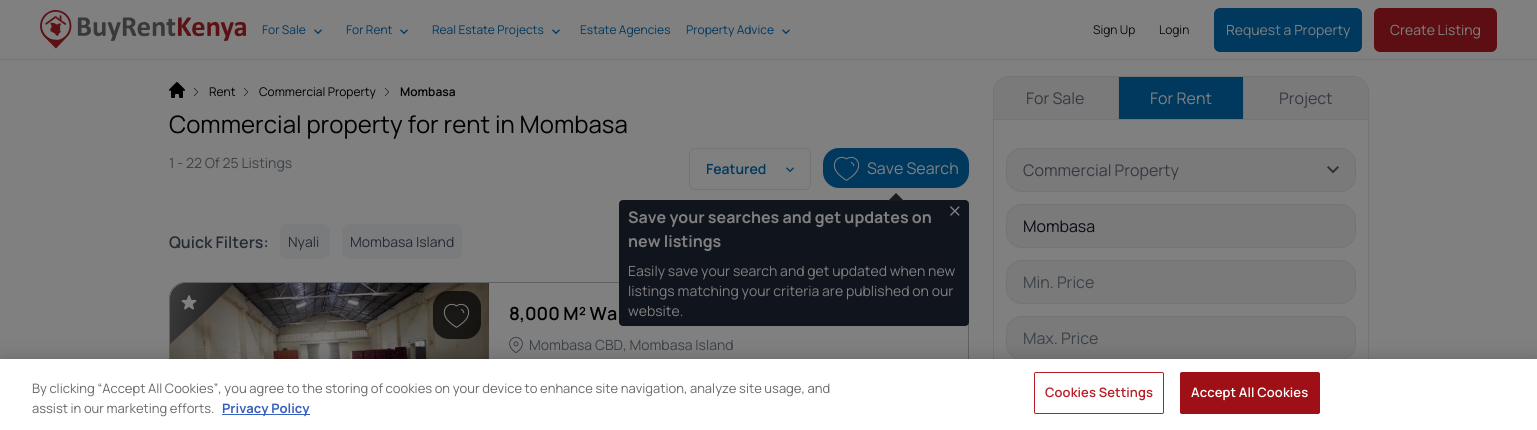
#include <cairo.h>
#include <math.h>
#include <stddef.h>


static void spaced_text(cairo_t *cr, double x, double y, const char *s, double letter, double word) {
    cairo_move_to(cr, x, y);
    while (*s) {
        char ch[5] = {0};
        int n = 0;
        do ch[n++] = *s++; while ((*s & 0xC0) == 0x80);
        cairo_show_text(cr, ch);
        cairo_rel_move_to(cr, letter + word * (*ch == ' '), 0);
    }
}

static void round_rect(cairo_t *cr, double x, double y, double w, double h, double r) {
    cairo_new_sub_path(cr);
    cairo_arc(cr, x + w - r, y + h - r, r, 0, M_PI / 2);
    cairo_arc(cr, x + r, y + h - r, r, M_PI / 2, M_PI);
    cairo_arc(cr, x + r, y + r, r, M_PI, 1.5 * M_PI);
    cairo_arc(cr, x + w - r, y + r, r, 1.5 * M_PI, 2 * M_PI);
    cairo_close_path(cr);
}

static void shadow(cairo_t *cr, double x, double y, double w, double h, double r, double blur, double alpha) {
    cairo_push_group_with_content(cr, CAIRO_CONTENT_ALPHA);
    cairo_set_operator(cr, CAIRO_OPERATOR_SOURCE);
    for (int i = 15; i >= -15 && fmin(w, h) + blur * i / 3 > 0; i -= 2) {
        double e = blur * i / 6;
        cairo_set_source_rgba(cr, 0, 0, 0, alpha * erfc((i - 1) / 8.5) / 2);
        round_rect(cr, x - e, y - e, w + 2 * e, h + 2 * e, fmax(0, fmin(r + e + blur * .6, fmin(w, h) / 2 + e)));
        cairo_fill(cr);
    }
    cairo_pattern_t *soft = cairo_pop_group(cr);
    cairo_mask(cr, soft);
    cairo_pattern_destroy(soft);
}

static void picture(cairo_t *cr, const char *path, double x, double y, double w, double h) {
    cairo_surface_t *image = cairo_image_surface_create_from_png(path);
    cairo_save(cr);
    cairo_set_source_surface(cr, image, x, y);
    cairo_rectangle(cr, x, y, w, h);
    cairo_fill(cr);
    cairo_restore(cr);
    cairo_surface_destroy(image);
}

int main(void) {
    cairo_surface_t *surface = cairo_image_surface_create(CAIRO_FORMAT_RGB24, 1537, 430);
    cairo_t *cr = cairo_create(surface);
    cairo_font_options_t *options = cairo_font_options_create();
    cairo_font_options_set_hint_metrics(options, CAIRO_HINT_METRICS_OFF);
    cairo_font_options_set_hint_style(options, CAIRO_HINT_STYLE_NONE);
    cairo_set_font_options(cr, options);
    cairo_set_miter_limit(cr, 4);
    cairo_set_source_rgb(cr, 0.502, 0.502, 0.502);
    cairo_paint(cr);
    cairo_set_source_rgb(cr, 0.443, 0.455, 0.471);
    cairo_rectangle(cr, 0, 59, 1537, 1);
    cairo_fill(cr);
    picture(cr, "img1.png", 40, 10, 206, 39);
    cairo_select_font_face(cr, "Manrope", CAIRO_FONT_SLANT_NORMAL, CAIRO_FONT_WEIGHT_NORMAL);
    cairo_set_font_size(cr, 12);
    cairo_set_source_rgb(cr, 0, 0.22, 0.369);
    cairo_move_to(cr, 262, 34);
    cairo_show_text(cr, "For Sale");
    picture(cr, "img2.png", 314, 29, 8, 6);
    cairo_move_to(cr, 346, 34);
    cairo_show_text(cr, "For Rent");
    picture(cr, "img2.png", 400, 29, 8, 6);
    cairo_move_to(cr, 432, 34);
    cairo_show_text(cr, "Real Estate Projects");
    picture(cr, "img2.png", 552, 29, 8, 6);
    cairo_move_to(cr, 580, 34);
    cairo_show_text(cr, "Estate Agencies");
    cairo_move_to(cr, 686, 34);
    cairo_show_text(cr, "Property Advice");
    picture(cr, "img2.png", 782, 29, 8, 6);
    cairo_set_source_rgb(cr, 0.035, 0.047, 0.078);
    cairo_move_to(cr, 1093, 34);
    cairo_show_text(cr, "Sign Up");
    cairo_move_to(cr, 1159, 34);
    cairo_show_text(cr, "Login");
    cairo_set_source_rgb(cr, 0, 0.22, 0.369);
    round_rect(cr, 1214, 8, 148, 44, 6);
    cairo_fill(cr);
    cairo_set_font_size(cr, 14);
    cairo_set_source_rgb(cr, 0.502, 0.502, 0.502);
    cairo_move_to(cr, 1226, 35);
    cairo_show_text(cr, "Request a Property");
    cairo_set_source_rgb(cr, 0.361, 0.055, 0.071);
    round_rect(cr, 1374, 8, 123, 44, 6);
    cairo_fill(cr);
    cairo_set_source_rgb(cr, 0.502, 0.502, 0.502);
    cairo_move_to(cr, 1390, 35);
    cairo_show_text(cr, "Create Listing");
    picture(cr, "img3.png", 169, 82, 16, 16);
    picture(cr, "img4.png", 193, 87, 5, 10);
    cairo_set_font_size(cr, 12);
    cairo_set_source_rgb(cr, 0, 0, 0);
    cairo_move_to(cr, 209, 96);
    cairo_show_text(cr, "Rent");
    picture(cr, "img4.png", 243, 87, 5, 10);
    cairo_move_to(cr, 259, 96);
    cairo_show_text(cr, "Commercial Property");
    picture(cr, "img4.png", 384, 87, 5, 10);
    cairo_select_font_face(cr, "Manrope SemiBold", CAIRO_FONT_SLANT_NORMAL, CAIRO_FONT_WEIGHT_NORMAL);
    cairo_move_to(cr, 400, 96);
    cairo_show_text(cr, "Mombasa");
    cairo_select_font_face(cr, "Manrope", CAIRO_FONT_SLANT_NORMAL, CAIRO_FONT_WEIGHT_NORMAL);
    cairo_set_font_size(cr, 24);
    cairo_move_to(cr, 169, 133);
    cairo_show_text(cr, "Commercial property for rent in Mombasa");
    cairo_set_font_size(cr, 14);
    cairo_set_source_rgb(cr, 0.231, 0.255, 0.278);
    cairo_move_to(cr, 169, 168);
    cairo_show_text(cr, "1 - 22 Of 25 Listings");
    cairo_set_source_rgb(cr, 0, 0.22, 0.369);
    round_rect(cr, 823, 148, 146, 40, 16);
    cairo_fill(cr);
    picture(cr, "img5.png", 833, 156, 27, 25);
    cairo_set_font_size(cr, 16);
    cairo_set_source_rgb(cr, 0.502, 0.502, 0.502);
    cairo_move_to(cr, 867, 174);
    cairo_show_text(cr, "Save Search");
    round_rect(cr, 169.5, 282.5, 799, 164, 15.5);
    cairo_set_source_rgb(cr, 0.361, 0.38, 0.4);
    cairo_set_line_width(cr, 1);
    cairo_stroke(cr);
    cairo_set_source_rgb(cr, 0.502, 0.502, 0.502);
    round_rect(cr, 170, 283, 798, 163, 16);
    cairo_fill(cr);
    cairo_set_source_rgb(cr, 0.063, 0.082, 0.11);
    round_rect(cr, 619, 200, 350, 126, 4);
    cairo_fill(cr);
    cairo_set_source_rgb(cr, 0.102, 0.102, 0.102);
    cairo_new_path(cr);
    cairo_move_to(cr, 904, 201);
    cairo_line_to(cr, 888, 201);
    cairo_line_to(cr, 896, 193);
    cairo_close_path(cr);
    cairo_fill(cr);
    cairo_select_font_face(cr, "Manrope", CAIRO_FONT_SLANT_NORMAL, CAIRO_FONT_WEIGHT_BOLD);
    cairo_set_source_rgb(cr, 0.502, 0.502, 0.502);
    cairo_move_to(cr, 628, 223);
    cairo_show_text(cr, "Save your searches and get updates on");
    cairo_move_to(cr, 628, 247);
    cairo_show_text(cr, "new listings");
    picture(cr, "img6.png", 950, 206, 10, 10);
    cairo_select_font_face(cr, "Manrope", CAIRO_FONT_SLANT_NORMAL, CAIRO_FONT_WEIGHT_NORMAL);
    cairo_set_font_size(cr, 14);
    cairo_move_to(cr, 628, 276);
    cairo_show_text(cr, "Easily save your search and get updated when new");
    cairo_move_to(cr, 628, 296);
    cairo_show_text(cr, "listings matching your criteria are published on our");
    cairo_move_to(cr, 628, 316);
    cairo_show_text(cr, "website.");
    round_rect(cr, 689.5, 148.5, 121, 41, 5.5);
    cairo_set_source_rgb(cr, 0.451, 0.455, 0.463);
    cairo_stroke(cr);
    cairo_select_font_face(cr, "Manrope SemiBold", CAIRO_FONT_SLANT_NORMAL, CAIRO_FONT_WEIGHT_NORMAL);
    cairo_set_source_rgb(cr, 0, 0.22, 0.369);
    cairo_move_to(cr, 706, 174);
    cairo_show_text(cr, "Featured");
    picture(cr, "img2.png", 786, 167, 8, 6);
    cairo_set_font_size(cr, 16);
    cairo_set_source_rgb(cr, 0.145, 0.169, 0.204);
    cairo_move_to(cr, 169, 248);
    cairo_show_text(cr, "Quick Filters:");
    cairo_set_source_rgb(cr, 0.478, 0.482, 0.486);
    round_rect(cr, 280, 224, 50, 35, 8);
    cairo_fill(cr);
    cairo_select_font_face(cr, "Manrope", CAIRO_FONT_SLANT_NORMAL, CAIRO_FONT_WEIGHT_NORMAL);
    cairo_set_font_size(cr, 14);
    cairo_set_source_rgb(cr, 0.145, 0.169, 0.204);
    cairo_move_to(cr, 288, 247);
    cairo_show_text(cr, "Nyali");
    cairo_set_source_rgb(cr, 0.478, 0.482, 0.486);
    round_rect(cr, 342, 224, 120, 35, 8);
    cairo_fill(cr);
    cairo_set_source_rgb(cr, 0.145, 0.169, 0.204);
    cairo_move_to(cr, 350, 247);
    cairo_show_text(cr, "Mombasa Island");
    picture(cr, "img7.png", 170, 283, 319, 76);
    picture(cr, "img8.png", 170, 283, 64, 61);
    cairo_set_source_rgba(cr, 0, 0, 0, 0.7);
    round_rect(cr, 433, 291, 48, 48, 16);
    cairo_fill(cr);
    picture(cr, "img9.png", 443, 303, 27, 25);
    cairo_select_font_face(cr, "Manrope SemiBold", CAIRO_FONT_SLANT_NORMAL, CAIRO_FONT_WEIGHT_NORMAL);
    cairo_set_font_size(cr, 18);
    cairo_set_source_rgb(cr, 0, 0, 0);
    cairo_move_to(cr, 509, 320);
    cairo_show_text(cr, "8,000 M² Wa");
    picture(cr, "img10.png", 509, 336, 14, 17);
    cairo_select_font_face(cr, "Manrope", CAIRO_FONT_SLANT_NORMAL, CAIRO_FONT_WEIGHT_NORMAL);
    cairo_set_font_size(cr, 14);
    cairo_set_source_rgb(cr, 0.231, 0.255, 0.278);
    cairo_move_to(cr, 529, 350);
    cairo_show_text(cr, "Mombasa CBD, Mombasa Island");
    cairo_new_path(cr);
    cairo_move_to(cr, 1009, 76.5);
    cairo_line_to(cr, 1353, 76.5);
    cairo_curve_to(cr, 1361.5, 76.5, 1368.5, 83.5, 1368.5, 92);
    cairo_line_to(cr, 1368.5, 119.5);
    cairo_line_to(cr, 993.5, 119.5);
    cairo_line_to(cr, 993.5, 92);
    cairo_curve_to(cr, 993.5, 83.5, 1000.5, 76.5, 1009, 76.5);
    cairo_close_path(cr);
    cairo_set_source_rgb(cr, 0.451, 0.455, 0.463);
    cairo_stroke(cr);
    cairo_set_source_rgb(cr, 0.478, 0.478, 0.482);
    cairo_new_path(cr);
    cairo_move_to(cr, 1009, 77);
    cairo_line_to(cr, 1118, 77);
    cairo_line_to(cr, 1118, 119);
    cairo_line_to(cr, 994, 119);
    cairo_line_to(cr, 994, 92);
    cairo_curve_to(cr, 994, 83.5, 1000.5, 77, 1009, 77);
    cairo_close_path(cr);
    cairo_fill(cr);
    cairo_set_font_size(cr, 16);
    cairo_set_source_rgb(cr, 0.212, 0.224, 0.251);
    cairo_move_to(cr, 1026, 104);
    cairo_show_text(cr, "For Sale");
    cairo_set_source_rgb(cr, 0.451, 0.455, 0.463);
    cairo_rectangle(cr, 1118, 77, 1, 42);
    cairo_fill(cr);
    cairo_set_source_rgb(cr, 0, 0.22, 0.369);
    cairo_rectangle(cr, 1119, 77, 124, 42);
    cairo_fill(cr);
    cairo_set_source_rgb(cr, 0.502, 0.502, 0.502);
    cairo_move_to(cr, 1150, 104);
    cairo_show_text(cr, "For Rent");
    cairo_set_source_rgb(cr, 0.451, 0.455, 0.463);
    cairo_rectangle(cr, 1243, 77, 1, 42);
    cairo_fill(cr);
    cairo_set_source_rgb(cr, 0.478, 0.478, 0.482);
    cairo_new_path(cr);
    cairo_move_to(cr, 1244, 77);
    cairo_line_to(cr, 1353, 77);
    cairo_curve_to(cr, 1361.5, 77, 1368, 83.5, 1368, 92);
    cairo_line_to(cr, 1368, 119);
    cairo_line_to(cr, 1244, 119);
    cairo_close_path(cr);
    cairo_fill(cr);
    cairo_set_source_rgb(cr, 0.212, 0.224, 0.251);
    cairo_move_to(cr, 1279, 104);
    cairo_show_text(cr, "Project");
    cairo_set_source_rgb(cr, 0.451, 0.455, 0.463);
    cairo_set_fill_rule(cr, CAIRO_FILL_RULE_EVEN_ODD);
    cairo_new_path(cr);
    cairo_move_to(cr, 993, 120);
    cairo_line_to(cr, 1369, 120);
    cairo_line_to(cr, 1369, 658);
    cairo_curve_to(cr, 1369, 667, 1362, 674, 1353, 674);
    cairo_line_to(cr, 1009, 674);
    cairo_curve_to(cr, 1000, 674, 993, 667, 993, 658);
    cairo_close_path(cr);
    cairo_move_to(cr, 994, 120);
    cairo_line_to(cr, 1368, 120);
    cairo_line_to(cr, 1368, 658);
    cairo_curve_to(cr, 1368, 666, 1361, 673, 1353, 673);
    cairo_line_to(cr, 1009, 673);
    cairo_curve_to(cr, 1001, 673, 994, 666, 994, 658);
    cairo_close_path(cr);
    cairo_fill(cr);
    cairo_set_source_rgb(cr, 0.478, 0.478, 0.482);
    round_rect(cr, 1006, 148, 350, 44, 16);
    cairo_fill(cr);
    picture(cr, "img11.png", 1327, 166, 12, 8);
    round_rect(cr, 1006.5, 148.5, 349, 43, 15.5);
    cairo_set_source_rgb(cr, 0.451, 0.455, 0.463);
    cairo_stroke(cr);
    cairo_set_source_rgb(cr, 0.212, 0.224, 0.251);
    cairo_move_to(cr, 1023, 176);
    cairo_show_text(cr, "Commercial Property");
    cairo_set_source_rgb(cr, 0.478, 0.478, 0.482);
    round_rect(cr, 1006.5, 204.5, 349, 43, 15.5);
    cairo_fill_preserve(cr);
    cairo_set_source_rgb(cr, 0.451, 0.455, 0.463);
    cairo_stroke(cr);
    cairo_set_source_rgb(cr, 0.035, 0.047, 0.078);
    cairo_move_to(cr, 1023, 232);
    cairo_show_text(cr, "Mombasa");
    cairo_set_source_rgb(cr, 0.478, 0.478, 0.482);
    round_rect(cr, 1006.5, 260.5, 349, 43, 15.5);
    cairo_fill_preserve(cr);
    cairo_set_source_rgb(cr, 0.451, 0.455, 0.463);
    cairo_stroke(cr);
    cairo_set_source_rgb(cr, 0.231, 0.255, 0.278);
    cairo_move_to(cr, 1023, 288);
    cairo_show_text(cr, "Min. Price");
    cairo_set_source_rgb(cr, 0.478, 0.478, 0.482);
    round_rect(cr, 1006.5, 316.5, 349, 43, 15.5);
    cairo_fill_preserve(cr);
    cairo_set_source_rgb(cr, 0.451, 0.455, 0.463);
    cairo_stroke(cr);
    cairo_set_source_rgb(cr, 0.231, 0.255, 0.278);
    cairo_move_to(cr, 1023, 344);
    cairo_show_text(cr, "Max. Price");
    cairo_set_source_rgb(cr, 0, 0, 0);
    shadow(cr, 0, 359, 1537, 71, 0, 9, 0.2);
    cairo_set_source_rgb(cr, 1, 1, 1);
    cairo_rectangle(cr, 0, 359, 1537, 71);
    cairo_fill(cr);
    cairo_set_font_size(cr, 13);
    cairo_set_source_rgb(cr, 0.412, 0.412, 0.412);
    cairo_move_to(cr, 32, 393);
    cairo_show_text(cr, "By clicking “Accept All Cookies”, you agree to the storing of cookies on your device to enhance site navigation, analyze site usage, and");
    cairo_move_to(cr, 32, 413);
    cairo_show_text(cr, "assist in our marketing efforts.");
    cairo_set_source_rgb(cr, 0.22, 0.376, 0.745);
    cairo_rectangle(cr, 222, 414, 88, 1);
    cairo_fill(cr);
    cairo_select_font_face(cr, "Manrope", CAIRO_FONT_SLANT_NORMAL, CAIRO_FONT_WEIGHT_BOLD);
    cairo_move_to(cr, 222, 413);
    cairo_show_text(cr, "Privacy Policy");
    round_rect(cr, 1034.5, 372.5, 129, 41, 1.5);
    cairo_set_source_rgb(cr, 0.722, 0.11, 0.141);
    cairo_stroke(cr);
    cairo_select_font_face(cr, "Manrope SemiBold", CAIRO_FONT_SLANT_NORMAL, CAIRO_FONT_WEIGHT_NORMAL);
    spaced_text(cr, 1045, 397, "Cookies Settings", 0.1, 0);
    cairo_set_source_rgb(cr, 0.62, 0.059, 0.086);
    round_rect(cr, 1180.5, 372.5, 139, 41, 1.5);
    cairo_fill_preserve(cr);
    cairo_stroke(cr);
    cairo_set_source_rgb(cr, 1, 1, 1);
    spaced_text(cr, 1191, 397, "Accept All Cookies", 0.1, 0);
    cairo_surface_write_to_png(surface, "page.png");
    cairo_font_options_destroy(options);
    cairo_destroy(cr);
    cairo_surface_destroy(surface);
    return 0;
}
